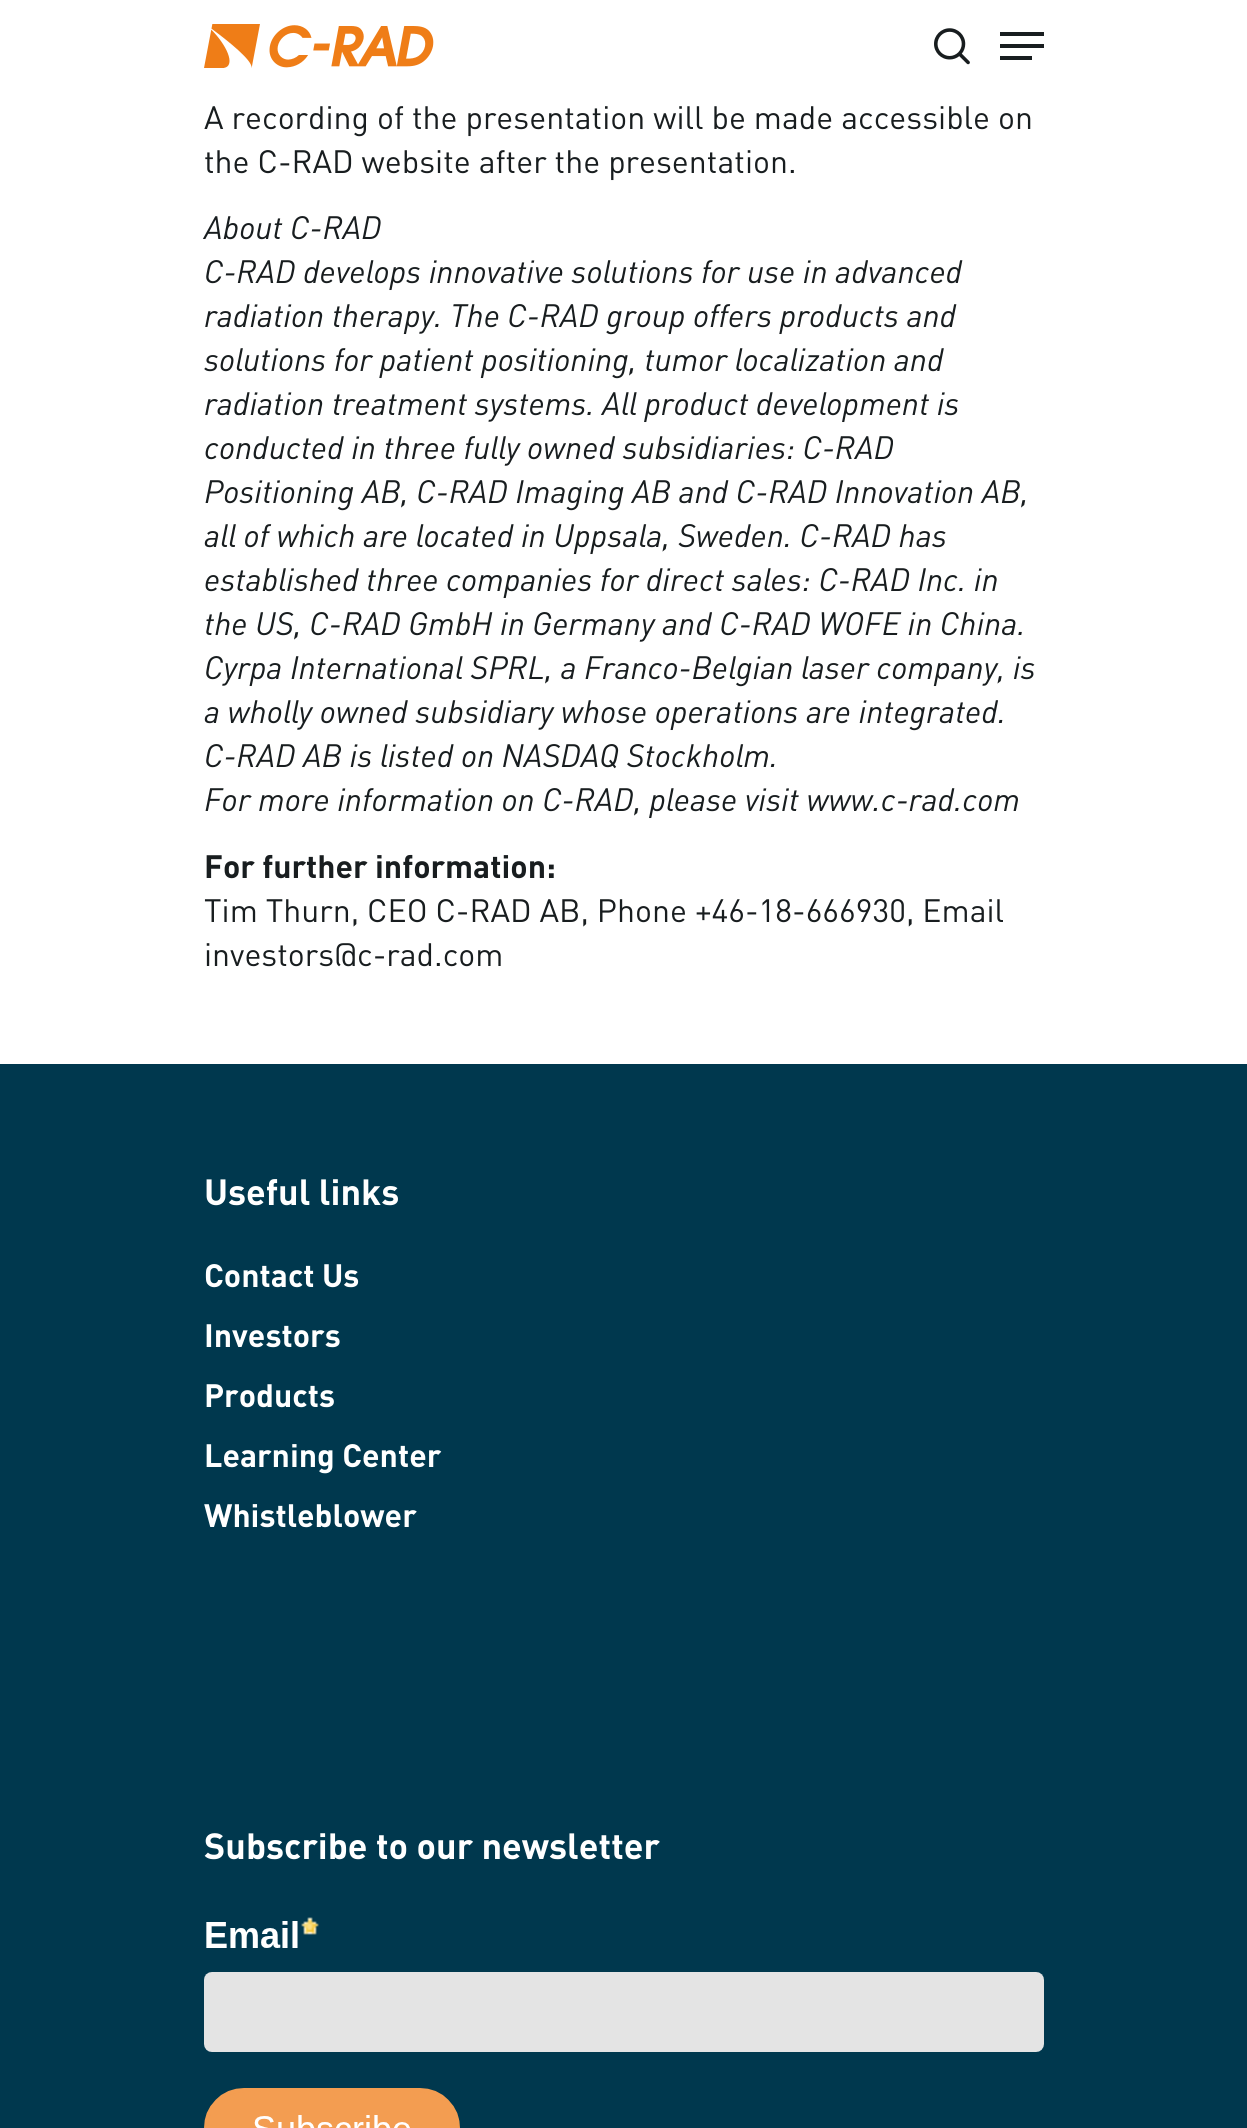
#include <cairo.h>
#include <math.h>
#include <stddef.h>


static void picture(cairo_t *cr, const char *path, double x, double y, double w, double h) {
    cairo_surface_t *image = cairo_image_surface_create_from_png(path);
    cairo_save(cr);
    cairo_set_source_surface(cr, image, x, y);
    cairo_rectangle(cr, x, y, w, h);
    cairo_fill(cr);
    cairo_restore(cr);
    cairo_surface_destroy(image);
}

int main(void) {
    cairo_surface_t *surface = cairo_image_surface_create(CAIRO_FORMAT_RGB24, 1247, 2128);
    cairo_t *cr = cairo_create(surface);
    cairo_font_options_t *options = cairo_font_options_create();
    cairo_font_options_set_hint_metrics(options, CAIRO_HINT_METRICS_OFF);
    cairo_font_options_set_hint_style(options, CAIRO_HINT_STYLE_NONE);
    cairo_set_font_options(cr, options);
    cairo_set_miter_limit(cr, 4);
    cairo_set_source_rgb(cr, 1, 1, 1);
    cairo_paint(cr);
    picture(cr, "img1.png", 204, 24, 230, 44);
    picture(cr, "img2.png", 934, 28, 36, 37);
    cairo_set_source_rgb(cr, 0.094, 0.114, 0.122);
    cairo_rectangle(cr, 1000, 32, 44, 4);
    cairo_fill(cr);
    cairo_rectangle(cr, 1000, 56, 32, 4);
    cairo_fill(cr);
    cairo_rectangle(cr, 1000, 44, 44, 4);
    cairo_fill(cr);
    cairo_select_font_face(cr, "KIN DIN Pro", CAIRO_FONT_SLANT_NORMAL, CAIRO_FONT_WEIGHT_NORMAL);
    cairo_set_font_size(cr, 32);
    cairo_move_to(cr, 204, 129);
    cairo_show_text(cr, "A recording of the presentation will be made accessible on");
    cairo_move_to(cr, 204, 173);
    cairo_show_text(cr, "the C-RAD website after the presentation.");
    cairo_select_font_face(cr, "KIN DIN Pro", CAIRO_FONT_SLANT_ITALIC, CAIRO_FONT_WEIGHT_NORMAL);
    cairo_move_to(cr, 204, 239);
    cairo_show_text(cr, "About C-RAD");
    cairo_move_to(cr, 204, 283);
    cairo_show_text(cr, "C-RAD develops innovative solutions for use in advanced");
    cairo_move_to(cr, 204, 327);
    cairo_show_text(cr, "radiation therapy. The C-RAD group offers products and");
    cairo_move_to(cr, 204, 371);
    cairo_show_text(cr, "solutions for patient positioning, tumor localization and");
    cairo_move_to(cr, 204, 415);
    cairo_show_text(cr, "radiation treatment systems. All product development is");
    cairo_move_to(cr, 204, 459);
    cairo_show_text(cr, "conducted in three fully owned subsidiaries: C-RAD");
    cairo_move_to(cr, 204, 503);
    cairo_show_text(cr, "Positioning AB, C-RAD Imaging AB and C-RAD Innovation AB,");
    cairo_move_to(cr, 204, 547);
    cairo_show_text(cr, "all of which are located in Uppsala, Sweden. C-RAD has");
    cairo_move_to(cr, 204, 591);
    cairo_show_text(cr, "established three companies for direct sales: C-RAD Inc. in");
    cairo_move_to(cr, 204, 635);
    cairo_show_text(cr, "the US, C-RAD GmbH in Germany and C-RAD WOFE in China.");
    cairo_move_to(cr, 204, 679);
    cairo_show_text(cr, "Cyrpa International SPRL, a Franco-Belgian laser company, is");
    cairo_move_to(cr, 204, 723);
    cairo_show_text(cr, "a wholly owned subsidiary whose operations are integrated.");
    cairo_move_to(cr, 204, 767);
    cairo_show_text(cr, "C-RAD AB is listed on NASDAQ Stockholm.");
    cairo_move_to(cr, 204, 811);
    cairo_show_text(cr, "For more information on C-RAD, please visit www.c-rad.com");
    cairo_select_font_face(cr, "KIN DIN Pro", CAIRO_FONT_SLANT_NORMAL, CAIRO_FONT_WEIGHT_BOLD);
    cairo_move_to(cr, 204, 878);
    cairo_show_text(cr, "For further information:");
    cairo_select_font_face(cr, "KIN DIN Pro", CAIRO_FONT_SLANT_NORMAL, CAIRO_FONT_WEIGHT_NORMAL);
    cairo_move_to(cr, 204, 922);
    cairo_show_text(cr, "Tim Thurn, CEO C-RAD AB, Phone +46-18-666930, Email");
    cairo_move_to(cr, 204, 966);
    cairo_show_text(cr, "investors@c-rad.com");
    cairo_set_source_rgb(cr, 0, 0.22, 0.306);
    cairo_rectangle(cr, 0, 1064, 1247, 1064);
    cairo_fill(cr);
    cairo_select_font_face(cr, "KIN DIN Pro", CAIRO_FONT_SLANT_NORMAL, CAIRO_FONT_WEIGHT_BOLD);
    cairo_set_font_size(cr, 36);
    cairo_set_source_rgb(cr, 1, 1, 1);
    cairo_move_to(cr, 204, 1205);
    cairo_show_text(cr, "Useful links");
    cairo_set_font_size(cr, 32);
    cairo_move_to(cr, 204, 1287);
    cairo_show_text(cr, "Contact Us");
    cairo_move_to(cr, 204, 1347);
    cairo_show_text(cr, "Investors");
    cairo_move_to(cr, 204, 1407);
    cairo_show_text(cr, "Products");
    cairo_move_to(cr, 204, 1467);
    cairo_show_text(cr, "Learning Center");
    cairo_move_to(cr, 204, 1527);
    cairo_show_text(cr, "Whistleblower");
    cairo_set_font_size(cr, 36);
    cairo_move_to(cr, 204, 1859);
    cairo_show_text(cr, "Subscribe to our newsletter");
    picture(cr, "img3.png", 204, 1917, 840, 211);
    cairo_surface_write_to_png(surface, "page.png");
    cairo_font_options_destroy(options);
    cairo_destroy(cr);
    cairo_surface_destroy(surface);
    return 0;
}
